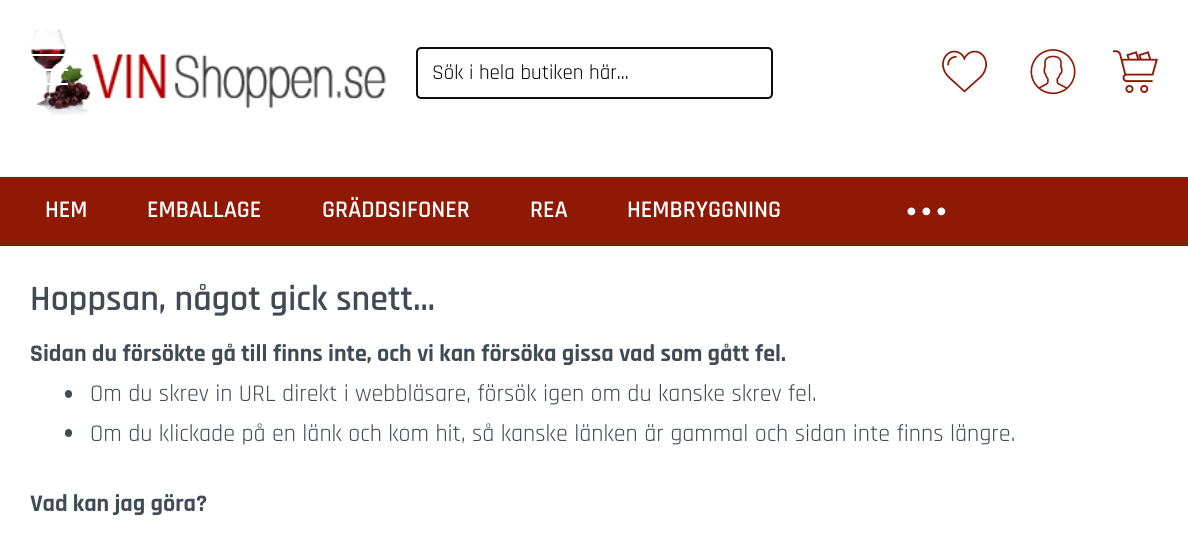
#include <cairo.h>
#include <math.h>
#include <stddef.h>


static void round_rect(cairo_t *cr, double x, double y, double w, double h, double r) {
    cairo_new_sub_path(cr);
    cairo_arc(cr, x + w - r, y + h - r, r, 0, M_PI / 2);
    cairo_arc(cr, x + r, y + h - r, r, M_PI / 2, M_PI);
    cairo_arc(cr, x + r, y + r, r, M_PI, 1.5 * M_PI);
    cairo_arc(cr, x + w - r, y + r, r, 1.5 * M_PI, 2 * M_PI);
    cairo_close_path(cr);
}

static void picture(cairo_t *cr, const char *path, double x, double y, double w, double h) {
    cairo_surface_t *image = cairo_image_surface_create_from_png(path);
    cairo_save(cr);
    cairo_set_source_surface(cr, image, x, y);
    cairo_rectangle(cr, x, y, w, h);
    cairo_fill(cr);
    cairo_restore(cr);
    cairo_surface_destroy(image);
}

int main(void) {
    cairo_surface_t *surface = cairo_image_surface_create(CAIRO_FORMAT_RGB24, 1188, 544);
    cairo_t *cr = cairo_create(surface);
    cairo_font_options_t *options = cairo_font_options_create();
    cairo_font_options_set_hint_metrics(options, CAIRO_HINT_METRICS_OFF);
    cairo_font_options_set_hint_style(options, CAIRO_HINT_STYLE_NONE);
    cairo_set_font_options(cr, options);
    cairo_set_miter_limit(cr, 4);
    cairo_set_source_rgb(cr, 1, 1, 1);
    cairo_paint(cr);
    picture(cr, "img1.png", 31, 30, 355, 85);
    cairo_set_source_rgb(cr, 1, 1, 1);
    cairo_rectangle(cr, 31, 54, 37, 2);
    cairo_fill(cr);
    cairo_rectangle(cr, 46, 83, 22, 2);
    cairo_fill(cr);
    cairo_rectangle(cr, 44, 69, 24, 2);
    cairo_fill(cr);
    round_rect(cr, 417, 48, 355, 50, 4);
    cairo_set_source_rgb(cr, 0.051, 0.051, 0.051);
    cairo_stroke(cr);
    cairo_select_font_face(cr, "Rajdhani", CAIRO_FONT_SLANT_NORMAL, CAIRO_FONT_WEIGHT_NORMAL);
    cairo_set_font_size(cr, 21);
    cairo_set_source_rgb(cr, 0, 0, 0);
    cairo_move_to(cr, 432, 79);
    cairo_show_text(cr, "Sök i hela butiken här...");
    picture(cr, "img2.png", 942, 50, 45, 43);
    picture(cr, "img3.png", 1030, 49, 46, 46);
    picture(cr, "img4.png", 1113, 50, 45, 43);
    cairo_set_source_rgb(cr, 0.561, 0.098, 0.016);
    cairo_rectangle(cr, 0, 177, 1188, 69);
    cairo_fill(cr);
    cairo_select_font_face(cr, "Rajdhani SemiBold", CAIRO_FONT_SLANT_NORMAL, CAIRO_FONT_WEIGHT_NORMAL);
    cairo_set_font_size(cr, 24);
    cairo_set_source_rgb(cr, 1, 1, 1);
    cairo_move_to(cr, 45, 217);
    cairo_show_text(cr, "HEM");
    cairo_move_to(cr, 147, 217);
    cairo_show_text(cr, "EMBALLAGE");
    cairo_move_to(cr, 322, 217);
    cairo_show_text(cr, "GRÄDDSIFONER");
    cairo_move_to(cr, 530, 217);
    cairo_show_text(cr, "REA");
    cairo_move_to(cr, 627, 217);
    cairo_show_text(cr, "HEMBRYGGNING");
    picture(cr, "img5.png", 907, 207, 9, 9);
    picture(cr, "img5.png", 922, 207, 9, 9);
    picture(cr, "img5.png", 937, 207, 9, 9);
    cairo_set_font_size(cr, 36);
    cairo_set_source_rgb(cr, 0.255, 0.294, 0.337);
    cairo_move_to(cr, 30, 310);
    cairo_show_text(cr, "Hoppsan, något gick snett…");
    cairo_select_font_face(cr, "Rajdhani", CAIRO_FONT_SLANT_NORMAL, CAIRO_FONT_WEIGHT_BOLD);
    cairo_set_font_size(cr, 24);
    cairo_move_to(cr, 30, 361);
    cairo_show_text(cr, "Sidan du försökte gå till finns inte, och vi kan försöka gissa vad som gått fel.");
    round_rect(cr, 65, 390, 7, 8, 3.5);
    cairo_fill(cr);
    cairo_select_font_face(cr, "Rajdhani", CAIRO_FONT_SLANT_NORMAL, CAIRO_FONT_WEIGHT_NORMAL);
    cairo_move_to(cr, 90, 401);
    cairo_show_text(cr, "Om du skrev in URL direkt i webbläsare, försök igen om du kanske skrev fel.");
    round_rect(cr, 65, 429, 7, 8, 3.5);
    cairo_fill(cr);
    cairo_move_to(cr, 90, 441);
    cairo_show_text(cr, "Om du klickade på en länk och kom hit, så kanske länken är gammal och sidan inte finns längre.");
    cairo_select_font_face(cr, "Rajdhani", CAIRO_FONT_SLANT_NORMAL, CAIRO_FONT_WEIGHT_BOLD);
    cairo_move_to(cr, 30, 511);
    cairo_show_text(cr, "Vad kan jag göra?");
    cairo_surface_write_to_png(surface, "page.png");
    cairo_font_options_destroy(options);
    cairo_destroy(cr);
    cairo_surface_destroy(surface);
    return 0;
}
